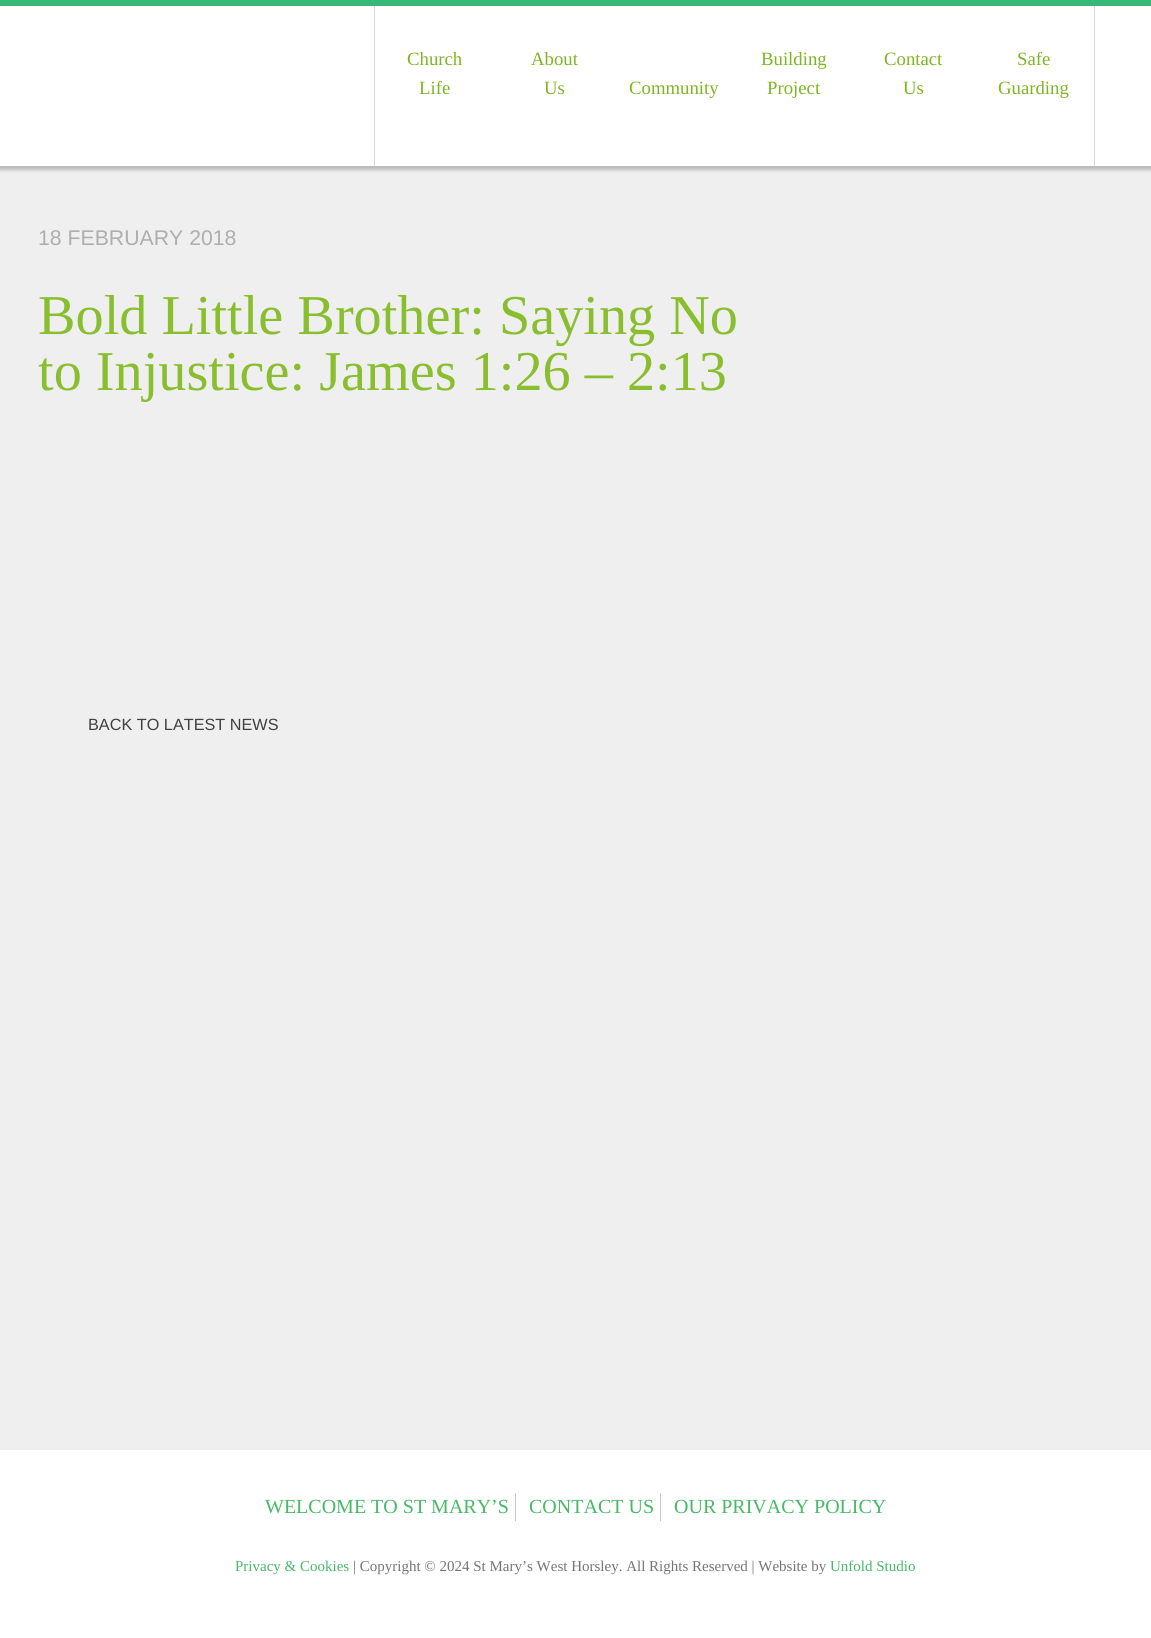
#include <cairo.h>
#include <math.h>
#include <stddef.h>


static void round_rect(cairo_t *cr, double x, double y, double w, double h, double r) {
    cairo_new_sub_path(cr);
    cairo_arc(cr, x + w - r, y + h - r, r, 0, M_PI / 2);
    cairo_arc(cr, x + r, y + h - r, r, M_PI / 2, M_PI);
    cairo_arc(cr, x + r, y + r, r, M_PI, 1.5 * M_PI);
    cairo_arc(cr, x + w - r, y + r, r, 1.5 * M_PI, 2 * M_PI);
    cairo_close_path(cr);
}

static void shadow(cairo_t *cr, double x, double y, double w, double h, double r, double blur, double alpha) {
    cairo_push_group_with_content(cr, CAIRO_CONTENT_ALPHA);
    cairo_set_operator(cr, CAIRO_OPERATOR_SOURCE);
    for (int i = 15; i >= -15 && fmin(w, h) + blur * i / 3 > 0; i -= 2) {
        double e = blur * i / 6;
        cairo_set_source_rgba(cr, 0, 0, 0, alpha * erfc((i - 1) / 8.5) / 2);
        round_rect(cr, x - e, y - e, w + 2 * e, h + 2 * e, fmax(0, fmin(r + e + blur * .6, fmin(w, h) / 2 + e)));
        cairo_fill(cr);
    }
    cairo_pattern_t *soft = cairo_pop_group(cr);
    cairo_mask(cr, soft);
    cairo_pattern_destroy(soft);
}

int main(void) {
    cairo_surface_t *surface = cairo_image_surface_create(CAIRO_FORMAT_RGB24, 1151, 1638);
    cairo_t *cr = cairo_create(surface);
    cairo_font_options_t *options = cairo_font_options_create();
    cairo_font_options_set_hint_metrics(options, CAIRO_HINT_METRICS_OFF);
    cairo_font_options_set_hint_style(options, CAIRO_HINT_STYLE_NONE);
    cairo_set_font_options(cr, options);
    cairo_set_miter_limit(cr, 4);
    cairo_set_source_rgb(cr, 0.937, 0.937, 0.937);
    cairo_paint(cr);
    cairo_set_source_rgb(cr, 0, 0, 0);
    shadow(cr, -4, -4, 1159, 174, 0, 2, 0.23);
    cairo_set_source_rgb(cr, 1, 1, 1);
    cairo_rectangle(cr, 0, 6, 1151, 160);
    cairo_fill(cr);
    cairo_set_source_rgb(cr, 0.22, 0.722, 0.467);
    cairo_rectangle(cr, 0, 0, 1151, 6);
    cairo_fill(cr);
    cairo_set_source_rgb(cr, 0.847, 0.847, 0.847);
    cairo_rectangle(cr, 1094, 6, 1, 160);
    cairo_fill(cr);
    cairo_rectangle(cr, 374, 6, 1, 160);
    cairo_fill(cr);
    cairo_select_font_face(cr, "Liberation Serif", CAIRO_FONT_SLANT_NORMAL, CAIRO_FONT_WEIGHT_NORMAL);
    cairo_set_font_size(cr, 18.75);
    cairo_set_source_rgb(cr, 0.498, 0.71, 0.129);
    cairo_move_to(cr, 407, 65);
    cairo_show_text(cr, "Church");
    cairo_move_to(cr, 419, 94);
    cairo_show_text(cr, "Life");
    cairo_move_to(cr, 531, 65);
    cairo_show_text(cr, "About");
    cairo_move_to(cr, 544, 94);
    cairo_show_text(cr, "Us");
    cairo_move_to(cr, 629, 94);
    cairo_show_text(cr, "Community");
    cairo_move_to(cr, 761, 65);
    cairo_show_text(cr, "Building");
    cairo_move_to(cr, 767, 94);
    cairo_show_text(cr, "Project");
    cairo_move_to(cr, 884, 65);
    cairo_show_text(cr, "Contact");
    cairo_move_to(cr, 903, 94);
    cairo_show_text(cr, "Us");
    cairo_move_to(cr, 1017, 65);
    cairo_show_text(cr, "Safe");
    cairo_move_to(cr, 998, 94);
    cairo_show_text(cr, "Guarding");
    cairo_select_font_face(cr, "Liberation Sans", CAIRO_FONT_SLANT_NORMAL, CAIRO_FONT_WEIGHT_NORMAL);
    cairo_set_font_size(cr, 21.25);
    cairo_set_source_rgb(cr, 0.682, 0.682, 0.682);
    cairo_move_to(cr, 38, 245);
    cairo_show_text(cr, "18 FEBRUARY 2018");
    cairo_select_font_face(cr, "Liberation Serif", CAIRO_FONT_SLANT_NORMAL, CAIRO_FONT_WEIGHT_NORMAL);
    cairo_set_font_size(cr, 56.25);
    cairo_set_source_rgb(cr, 0.537, 0.745, 0.18);
    cairo_move_to(cr, 38, 334);
    cairo_show_text(cr, "Bold Little Brother: Saying No");
    cairo_move_to(cr, 38, 390);
    cairo_show_text(cr, "to Injustice: James 1:26 – 2:13");
    cairo_select_font_face(cr, "Liberation Sans", CAIRO_FONT_SLANT_NORMAL, CAIRO_FONT_WEIGHT_NORMAL);
    cairo_set_font_size(cr, 16.25);
    cairo_set_source_rgb(cr, 0.251, 0.251, 0.255);
    cairo_move_to(cr, 88, 730);
    cairo_show_text(cr, "BACK TO LATEST NEWS");
    cairo_set_source_rgb(cr, 1, 1, 1);
    cairo_rectangle(cr, 0, 1450, 1151, 188);
    cairo_fill(cr);
    cairo_set_source_rgb(cr, 0.784, 0.784, 0.784);
    cairo_rectangle(cr, 515, 1493, 1, 28);
    cairo_fill(cr);
    cairo_select_font_face(cr, "Liberation Serif", CAIRO_FONT_SLANT_NORMAL, CAIRO_FONT_WEIGHT_NORMAL);
    cairo_set_font_size(cr, 20);
    cairo_set_source_rgb(cr, 0.278, 0.725, 0.404);
    cairo_move_to(cr, 265, 1513);
    cairo_show_text(cr, "WELCOME TO ST MARY’S");
    cairo_set_source_rgb(cr, 0.784, 0.784, 0.784);
    cairo_rectangle(cr, 660, 1493, 1, 28);
    cairo_fill(cr);
    cairo_set_source_rgb(cr, 0.278, 0.725, 0.404);
    cairo_move_to(cr, 529, 1513);
    cairo_show_text(cr, "CONTACT US");
    cairo_move_to(cr, 674, 1513);
    cairo_show_text(cr, "OUR PRIVACY POLICY");
    cairo_set_font_size(cr, 15);
    cairo_move_to(cr, 235, 1571);
    cairo_show_text(cr, "Privacy & Cookies");
    cairo_set_source_rgb(cr, 0.463, 0.459, 0.459);
    cairo_move_to(cr, 353, 1571);
    cairo_show_text(cr, "| Copyright © 2024 St Mary’s West Horsley. All Rights Reserved | Website by");
    cairo_set_source_rgb(cr, 0.278, 0.725, 0.404);
    cairo_move_to(cr, 830, 1571);
    cairo_show_text(cr, "Unfold Studio");
    cairo_surface_write_to_png(surface, "page.png");
    cairo_font_options_destroy(options);
    cairo_destroy(cr);
    cairo_surface_destroy(surface);
    return 0;
}
